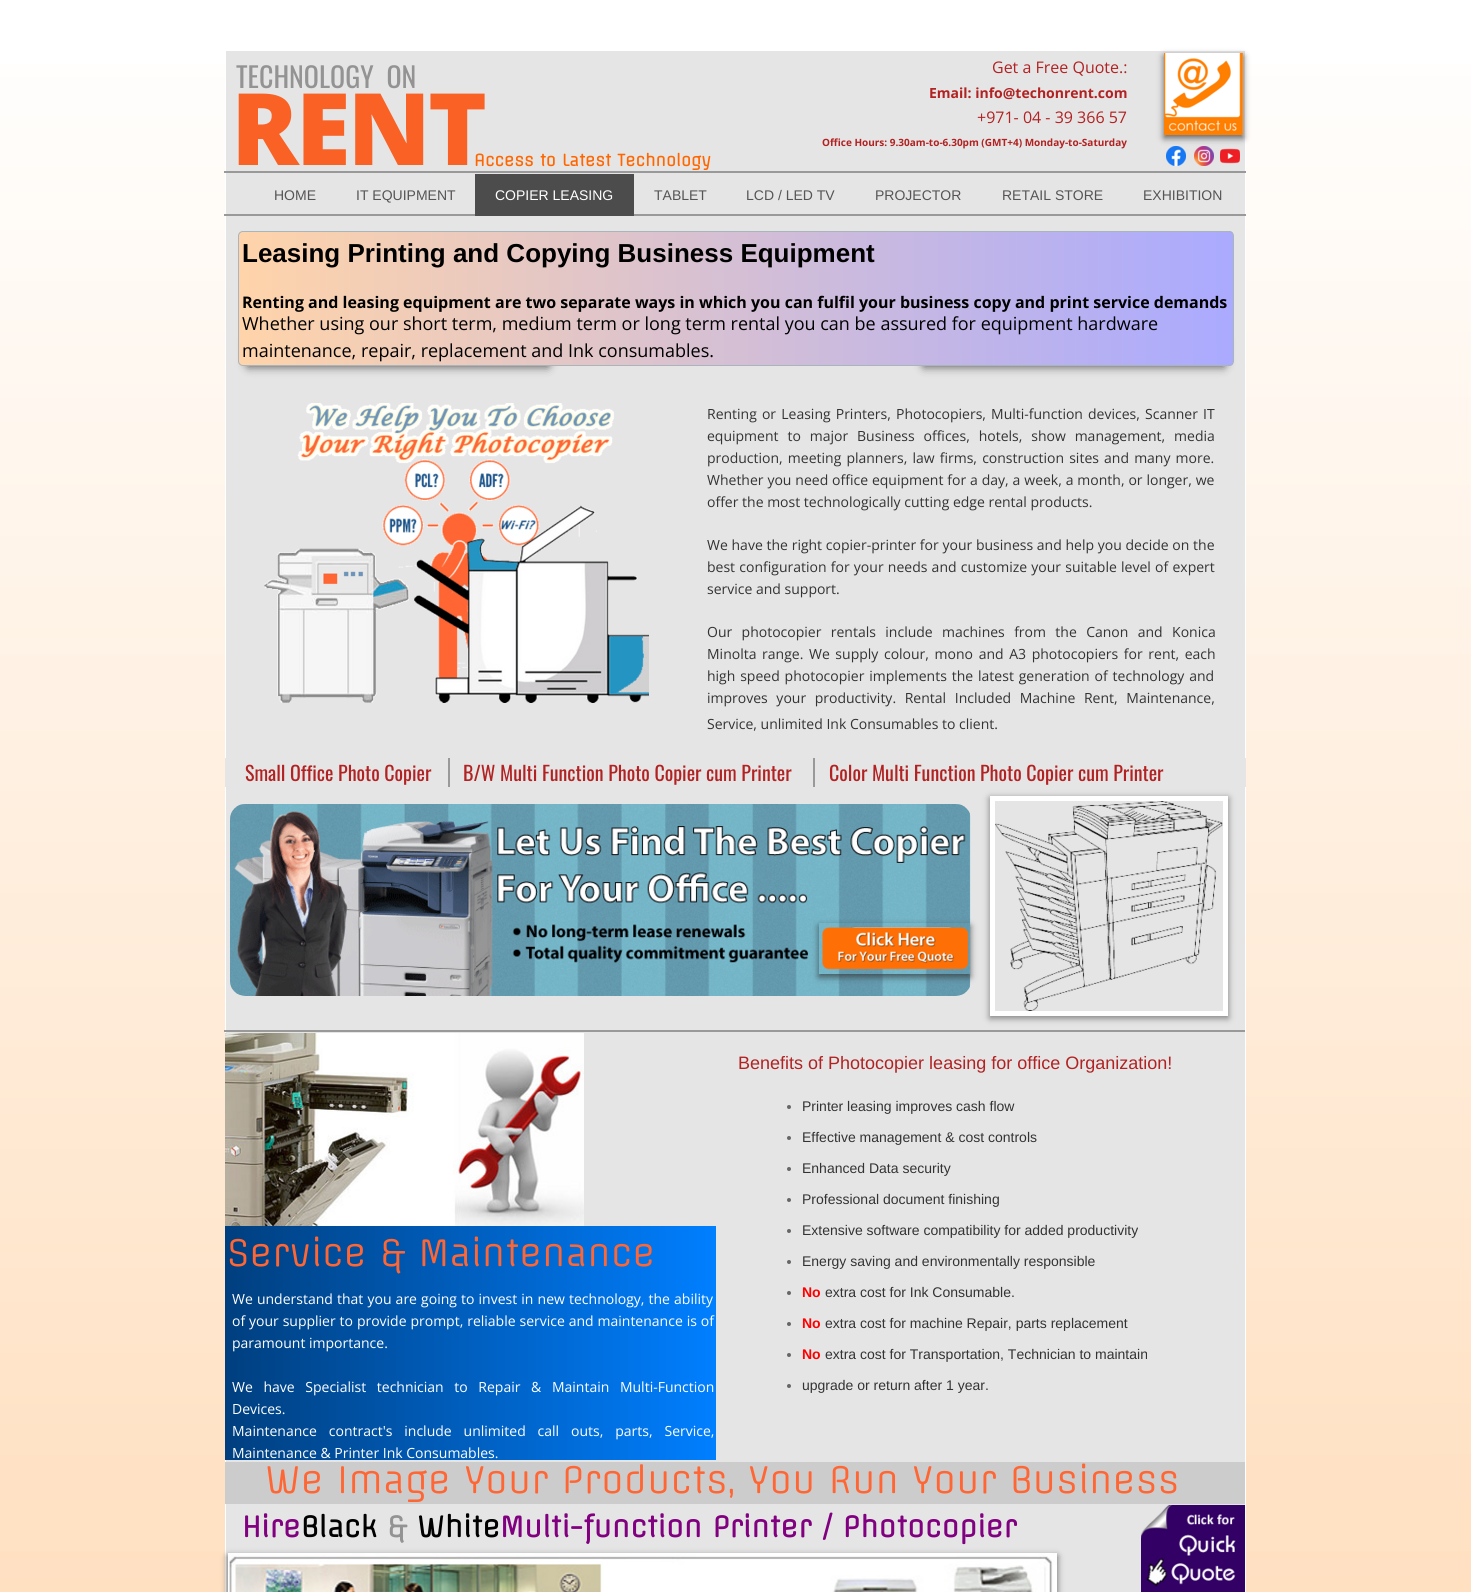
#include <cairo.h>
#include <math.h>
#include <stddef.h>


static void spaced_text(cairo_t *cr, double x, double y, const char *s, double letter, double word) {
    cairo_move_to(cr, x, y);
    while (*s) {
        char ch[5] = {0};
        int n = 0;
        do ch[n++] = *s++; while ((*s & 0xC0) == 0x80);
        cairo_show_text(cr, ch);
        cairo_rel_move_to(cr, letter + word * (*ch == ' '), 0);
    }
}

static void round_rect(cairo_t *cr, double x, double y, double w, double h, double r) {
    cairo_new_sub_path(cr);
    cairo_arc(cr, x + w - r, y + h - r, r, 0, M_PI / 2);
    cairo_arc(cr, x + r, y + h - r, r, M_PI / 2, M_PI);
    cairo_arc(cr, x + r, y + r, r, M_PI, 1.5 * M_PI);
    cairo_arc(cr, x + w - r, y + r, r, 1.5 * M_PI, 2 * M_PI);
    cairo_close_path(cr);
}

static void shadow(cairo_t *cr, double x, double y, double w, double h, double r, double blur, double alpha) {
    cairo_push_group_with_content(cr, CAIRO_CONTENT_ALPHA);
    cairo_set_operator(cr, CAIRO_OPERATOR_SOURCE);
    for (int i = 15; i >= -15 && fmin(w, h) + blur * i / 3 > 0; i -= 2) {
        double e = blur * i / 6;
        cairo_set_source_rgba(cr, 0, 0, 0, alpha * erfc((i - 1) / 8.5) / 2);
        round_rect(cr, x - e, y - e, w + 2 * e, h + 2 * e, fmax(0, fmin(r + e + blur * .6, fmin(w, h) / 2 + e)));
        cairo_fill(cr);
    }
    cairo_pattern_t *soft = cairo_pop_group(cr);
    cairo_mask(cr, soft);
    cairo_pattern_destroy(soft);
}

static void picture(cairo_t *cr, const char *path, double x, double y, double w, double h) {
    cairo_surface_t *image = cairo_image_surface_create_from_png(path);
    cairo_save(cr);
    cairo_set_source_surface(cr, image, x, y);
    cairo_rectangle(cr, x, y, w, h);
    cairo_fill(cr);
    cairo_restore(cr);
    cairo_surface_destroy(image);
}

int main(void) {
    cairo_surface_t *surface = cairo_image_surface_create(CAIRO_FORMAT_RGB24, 1471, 1592);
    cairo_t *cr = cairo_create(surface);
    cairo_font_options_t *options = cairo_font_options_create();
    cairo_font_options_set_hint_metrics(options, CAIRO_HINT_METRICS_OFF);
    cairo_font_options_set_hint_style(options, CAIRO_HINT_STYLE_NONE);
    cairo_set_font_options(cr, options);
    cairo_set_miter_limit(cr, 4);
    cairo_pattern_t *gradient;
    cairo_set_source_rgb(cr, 1, 1, 1);
    cairo_paint(cr);
    gradient = cairo_pattern_create_linear(735, 0, 736, 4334);
    cairo_pattern_add_color_stop_rgba(gradient, 0, 1, 1, 1, 1);
    cairo_pattern_add_color_stop_rgba(gradient, 1, 1, 0.667, 0.337, 1);
    cairo_set_source(cr, gradient);
    cairo_pattern_destroy(gradient);
    cairo_rectangle(cr, 0, 64, 1471, 1528);
    cairo_fill(cr);
    cairo_set_source_rgb(cr, 0.898, 0.898, 0.898);
    cairo_rectangle(cr, 225.5, 50.5, 1020, 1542);
    cairo_fill_preserve(cr);
    cairo_set_source_rgb(cr, 1, 1, 1);
    cairo_set_line_width(cr, 1);
    cairo_stroke(cr);
    cairo_select_font_face(cr, "Oswald", CAIRO_FONT_SLANT_NORMAL, CAIRO_FONT_WEIGHT_NORMAL);
    cairo_set_font_size(cr, 28);
    cairo_set_source_rgb(cr, 0.58, 0.576, 0.576);
    cairo_move_to(cr, 236, 88);
    cairo_show_text(cr, "TECHNOLOGY  ON");
    cairo_select_font_face(cr, "Open Sans", CAIRO_FONT_SLANT_NORMAL, CAIRO_FONT_WEIGHT_NORMAL);
    cairo_set_font_size(cr, 16);
    cairo_set_source_rgb(cr, 0.698, 0.133, 0.133);
    cairo_move_to(cr, 992, 73);
    cairo_show_text(cr, "Get a Free Quote.:");
    cairo_select_font_face(cr, "Open Sans", CAIRO_FONT_SLANT_NORMAL, CAIRO_FONT_WEIGHT_BOLD);
    cairo_set_font_size(cr, 14);
    cairo_move_to(cr, 929, 98);
    cairo_show_text(cr, "Email: info@techonrent.com");
    cairo_select_font_face(cr, "Open Sans", CAIRO_FONT_SLANT_NORMAL, CAIRO_FONT_WEIGHT_NORMAL);
    cairo_set_font_size(cr, 16);
    cairo_move_to(cr, 977, 123);
    cairo_show_text(cr, "+971- 04 - 39 366 57");
    cairo_select_font_face(cr, "Open Sans", CAIRO_FONT_SLANT_NORMAL, CAIRO_FONT_WEIGHT_BOLD);
    cairo_set_font_size(cr, 10);
    cairo_move_to(cr, 822, 146);
    cairo_show_text(cr, "Office Hours: 9.30am-to-6.30pm (GMT+4) Monday-to-Saturday");
    cairo_set_source_rgb(cr, 0.196, 0.196, 0.196);
    shadow(cr, 1164, 56, 79, 82, 0, 3.5, 0.75);
    picture(cr, "img1.png", 1164, 53, 79, 82);
    cairo_select_font_face(cr, "Open Sans ExtraBold", CAIRO_FONT_SLANT_NORMAL, CAIRO_FONT_WEIGHT_NORMAL);
    cairo_set_font_size(cr, 100);
    cairo_set_source_rgb(cr, 0.976, 0.38, 0.145);
    spaced_text(cr, 231, 165, "RENT", -3, 0);
    cairo_select_font_face(cr, "Offside", CAIRO_FONT_SLANT_NORMAL, CAIRO_FONT_WEIGHT_BOLD);
    cairo_set_font_size(cr, 16);
    cairo_set_source_rgb(cr, 1, 0.4, 0);
    cairo_move_to(cr, 474, 166);
    cairo_show_text(cr, "Access to Latest Technology");
    picture(cr, "img2.png", 1166, 146, 20, 20);
    picture(cr, "img3.png", 1194, 146, 20, 20);
    picture(cr, "img4.png", 1220, 148, 20, 16);
    cairo_set_source_rgb(cr, 0.6, 0.6, 0.6);
    cairo_rectangle(cr, 224, 171, 1022, 2);
    cairo_fill(cr);
    cairo_select_font_face(cr, "Liberation Sans", CAIRO_FONT_SLANT_NORMAL, CAIRO_FONT_WEIGHT_NORMAL);
    cairo_set_font_size(cr, 14);
    cairo_set_source_rgb(cr, 0.337, 0.329, 0.329);
    cairo_move_to(cr, 274, 200);
    cairo_show_text(cr, "HOME");
    cairo_move_to(cr, 356, 200);
    cairo_show_text(cr, "IT EQUIPMENT");
    cairo_set_source_rgb(cr, 0.6, 0.6, 0.6);
    cairo_rectangle(cr, 224, 214, 1022, 2);
    cairo_fill(cr);
    cairo_set_source_rgb(cr, 0.298, 0.298, 0.298);
    cairo_rectangle(cr, 475, 174, 159, 42);
    cairo_fill(cr);
    cairo_set_source_rgb(cr, 1, 1, 1);
    cairo_move_to(cr, 495, 200);
    cairo_show_text(cr, "COPIER LEASING");
    cairo_set_source_rgb(cr, 0.337, 0.329, 0.329);
    cairo_move_to(cr, 654, 200);
    cairo_show_text(cr, "TABLET");
    cairo_move_to(cr, 746, 200);
    cairo_show_text(cr, "LCD / LED TV");
    cairo_move_to(cr, 875, 200);
    cairo_show_text(cr, "PROJECTOR");
    cairo_move_to(cr, 1002, 200);
    cairo_show_text(cr, "RETAIL STORE");
    cairo_move_to(cr, 1143, 200);
    cairo_show_text(cr, "EXHIBITION");
    cairo_set_source_rgb(cr, 0, 0, 0);
    shadow(cr, 248, 339, 300, 27, 0, 5, 0.7);
    shadow(cr, 924, 339, 300, 27, 0, 5, 0.7);
    cairo_save(cr);
    round_rect(cr, 238, 231, 996, 135, 5);
    cairo_clip(cr);
    gradient = cairo_pattern_create_linear(239, 299, 1233, 298);
    cairo_pattern_add_color_stop_rgba(gradient, 0, 1, 0.831, 0.667, 1);
    cairo_pattern_add_color_stop_rgba(gradient, 1, 0.667, 0.667, 1, 1);
    cairo_set_source(cr, gradient);
    cairo_pattern_destroy(gradient);
    cairo_rectangle(cr, 239, 231, 994, 135);
    cairo_fill(cr);
    cairo_restore(cr);
    round_rect(cr, 238.5, 231.5, 995, 134, 4.5);
    cairo_set_source_rgb(cr, 0.663, 0.706, 0.733);
    cairo_stroke(cr);
    cairo_select_font_face(cr, "Liberation Sans", CAIRO_FONT_SLANT_NORMAL, CAIRO_FONT_WEIGHT_BOLD);
    cairo_set_font_size(cr, 26);
    cairo_set_source_rgb(cr, 0, 0, 0);
    cairo_move_to(cr, 242, 262);
    cairo_show_text(cr, "Leasing Printing and Copying Business Equipment");
    cairo_select_font_face(cr, "Open Sans", CAIRO_FONT_SLANT_NORMAL, CAIRO_FONT_WEIGHT_BOLD);
    cairo_set_font_size(cr, 16);
    cairo_move_to(cr, 242, 308);
    cairo_show_text(cr, "Renting and leasing equipment are two separate ways in which you can fulfil your business copy and print service demands");
    cairo_select_font_face(cr, "Open Sans", CAIRO_FONT_SLANT_NORMAL, CAIRO_FONT_WEIGHT_NORMAL);
    cairo_set_font_size(cr, 18);
    cairo_move_to(cr, 242, 330);
    cairo_show_text(cr, "Whether using our short term, medium term or long term rental you can be assured for equipment hardware");
    cairo_move_to(cr, 242, 357);
    cairo_show_text(cr, "maintenance, repair, replacement and Ink consumables.");
    picture(cr, "img5.png", 264, 403, 385, 300);
    cairo_set_font_size(cr, 14);
    cairo_set_source_rgb(cr, 0.2, 0.2, 0.2);
    spaced_text(cr, 707, 419, "Renting or Leasing Printers, Photocopiers, Multi-function devices, Scanner IT", 0, 1.5);
    spaced_text(cr, 707, 441, "equipment to major Business offices, hotels, show management, media", 0, 5.25);
    spaced_text(cr, 707, 463, "production, meeting planners, law firms, construction sites and many more.", 0, 1.5);
    spaced_text(cr, 707, 485, "Whether you need office equipment for a day, a week, a month, or longer, we", 0, 0.25);
    cairo_move_to(cr, 707, 507);
    cairo_show_text(cr, "offer the most technologically cutting edge rental products.");
    spaced_text(cr, 707, 550, "We have the right copier-printer for your business and help you decide on the", 0, 0.1);
    spaced_text(cr, 707, 572, "best configuration for your needs and customize your suitable level of expert", 0, 0.6);
    cairo_move_to(cr, 707, 594);
    cairo_show_text(cr, "service and support.");
    spaced_text(cr, 707, 637, "Our photocopier rentals include machines from the Canon and Konica", 0, 5.75);
    spaced_text(cr, 707, 659, "Minolta range. We supply colour, mono and A3 photocopiers for rent, each", 0, 2);
    spaced_text(cr, 707, 681, "high speed photocopier implements the latest generation of technology and", 0, 1.25);
    spaced_text(cr, 707, 703, "improves your productivity. Rental Included Machine Rent, Maintenance,", 0, 5);
    cairo_move_to(cr, 707, 729);
    cairo_show_text(cr, "Service, unlimited Ink Consumables to client.");
    cairo_set_source_rgb(cr, 0.898, 0.898, 0.898);
    cairo_rectangle(cr, 225, 758, 1021, 29);
    cairo_fill(cr);
    cairo_set_source_rgb(cr, 0.6, 0.6, 0.6);
    cairo_rectangle(cr, 448, 758, 2, 29);
    cairo_fill(cr);
    cairo_rectangle(cr, 813, 758, 2, 29);
    cairo_fill(cr);
    cairo_select_font_face(cr, "Oswald", CAIRO_FONT_SLANT_NORMAL, CAIRO_FONT_WEIGHT_NORMAL);
    cairo_set_font_size(cr, 20);
    cairo_set_source_rgb(cr, 0.698, 0.133, 0.133);
    cairo_move_to(cr, 245, 781);
    cairo_show_text(cr, "Small Office Photo Copier");
    cairo_move_to(cr, 463, 781);
    cairo_show_text(cr, "B/W Multi Function Photo Copier cum Printer");
    cairo_move_to(cr, 829, 781);
    cairo_show_text(cr, "Color Multi Function Photo Copier cum Printer");
    picture(cr, "img6.png", 230, 804, 741, 192);
    cairo_save(cr);
    cairo_set_fill_rule(cr, CAIRO_FILL_RULE_EVEN_ODD);
    cairo_new_path(cr);
    cairo_move_to(cr, 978, 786);
    cairo_line_to(cr, 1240, 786);
    cairo_line_to(cr, 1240, 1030);
    cairo_line_to(cr, 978, 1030);
    cairo_close_path(cr);
    cairo_move_to(cr, 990, 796);
    cairo_line_to(cr, 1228, 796);
    cairo_line_to(cr, 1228, 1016);
    cairo_line_to(cr, 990, 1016);
    cairo_close_path(cr);
    cairo_clip(cr);
    cairo_set_source_rgb(cr, 0.196, 0.196, 0.196);
    shadow(cr, 990, 798, 238, 220, 0, 3.5, 0.6);
    cairo_restore(cr);
    cairo_rectangle(cr, 992.5, 798.5, 233, 215);
    cairo_set_source_rgb(cr, 1, 1, 1);
    cairo_set_line_width(cr, 5);
    cairo_stroke(cr);
    picture(cr, "img7.png", 995, 801, 228, 210);
    cairo_save(cr);
    cairo_set_fill_rule(cr, CAIRO_FILL_RULE_EVEN_ODD);
    cairo_new_path(cr);
    cairo_move_to(cr, 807, 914);
    cairo_line_to(cr, 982, 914);
    cairo_line_to(cr, 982, 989);
    cairo_line_to(cr, 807, 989);
    cairo_close_path(cr);
    cairo_move_to(cr, 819, 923);
    cairo_line_to(cr, 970, 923);
    cairo_line_to(cr, 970, 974);
    cairo_line_to(cr, 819, 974);
    cairo_close_path(cr);
    cairo_clip(cr);
    cairo_set_source_rgb(cr, 0.196, 0.196, 0.196);
    shadow(cr, 819, 926, 151, 51, 0, 3.5, 0.75);
    cairo_restore(cr);
    picture(cr, "img8.png", 822, 927, 147, 43);
    cairo_set_source_rgb(cr, 0.6, 0.6, 0.6);
    cairo_rectangle(cr, 224, 1030, 1021, 2);
    cairo_fill(cr);
    picture(cr, "img9.png", 225, 1033, 359, 193);
    cairo_select_font_face(cr, "Liberation Sans", CAIRO_FONT_SLANT_NORMAL, CAIRO_FONT_WEIGHT_NORMAL);
    cairo_set_font_size(cr, 18);
    cairo_set_source_rgb(cr, 0.698, 0.133, 0.133);
    cairo_move_to(cr, 738, 1069);
    cairo_show_text(cr, "Benefits of Photocopier leasing for office Organization!");
    gradient = cairo_pattern_create_linear(225, 1343, 716, 1343);
    cairo_pattern_add_color_stop_rgba(gradient, 0, 0, 0.247, 0.498, 1);
    cairo_pattern_add_color_stop_rgba(gradient, 1, 0, 0.498, 1, 1);
    cairo_set_source(cr, gradient);
    cairo_pattern_destroy(gradient);
    cairo_rectangle(cr, 225, 1226, 491, 234);
    cairo_fill(cr);
    cairo_set_source_rgb(cr, 0.4, 0.4, 0.4);
    cairo_arc(cr, 789, 1107, 2, 0, 2 * M_PI);
    cairo_fill(cr);
    cairo_set_font_size(cr, 14);
    cairo_set_source_rgb(cr, 0.2, 0.2, 0.2);
    cairo_move_to(cr, 802, 1111);
    cairo_show_text(cr, "Printer leasing improves cash flow");
    cairo_set_source_rgb(cr, 0.4, 0.4, 0.4);
    cairo_new_path(cr);
    cairo_arc(cr, 789, 1138, 2, 0, 2 * M_PI);
    cairo_fill(cr);
    cairo_set_source_rgb(cr, 0.2, 0.2, 0.2);
    cairo_move_to(cr, 802, 1142);
    cairo_show_text(cr, "Effective management & cost controls");
    cairo_set_source_rgb(cr, 0.4, 0.4, 0.4);
    cairo_new_path(cr);
    cairo_arc(cr, 789, 1169, 2, 0, 2 * M_PI);
    cairo_fill(cr);
    cairo_set_source_rgb(cr, 0.2, 0.2, 0.2);
    cairo_move_to(cr, 802, 1173);
    cairo_show_text(cr, "Enhanced Data security");
    cairo_set_source_rgb(cr, 0.4, 0.4, 0.4);
    cairo_new_path(cr);
    cairo_arc(cr, 789, 1200, 2, 0, 2 * M_PI);
    cairo_fill(cr);
    cairo_set_source_rgb(cr, 0.2, 0.2, 0.2);
    cairo_move_to(cr, 802, 1204);
    cairo_show_text(cr, "Professional document finishing");
    cairo_set_source_rgb(cr, 0.4, 0.4, 0.4);
    cairo_new_path(cr);
    cairo_arc(cr, 789, 1231, 2, 0, 2 * M_PI);
    cairo_fill(cr);
    cairo_set_source_rgb(cr, 0.2, 0.2, 0.2);
    cairo_move_to(cr, 802, 1235);
    cairo_show_text(cr, "Extensive software compatibility for added productivity");
    cairo_set_source_rgb(cr, 0.4, 0.4, 0.4);
    cairo_new_path(cr);
    cairo_arc(cr, 789, 1262, 2, 0, 2 * M_PI);
    cairo_fill(cr);
    cairo_set_source_rgb(cr, 0.2, 0.2, 0.2);
    cairo_move_to(cr, 802, 1266);
    cairo_show_text(cr, "Energy saving and environmentally responsible");
    cairo_set_source_rgb(cr, 0.4, 0.4, 0.4);
    cairo_new_path(cr);
    cairo_arc(cr, 789, 1293, 2, 0, 2 * M_PI);
    cairo_fill(cr);
    cairo_select_font_face(cr, "Liberation Sans", CAIRO_FONT_SLANT_NORMAL, CAIRO_FONT_WEIGHT_BOLD);
    cairo_set_source_rgb(cr, 1, 0, 0);
    cairo_move_to(cr, 802, 1297);
    cairo_show_text(cr, "No");
    cairo_select_font_face(cr, "Liberation Sans", CAIRO_FONT_SLANT_NORMAL, CAIRO_FONT_WEIGHT_NORMAL);
    cairo_set_source_rgb(cr, 0.2, 0.2, 0.2);
    cairo_move_to(cr, 825, 1297);
    cairo_show_text(cr, "extra cost for Ink Consumable.");
    cairo_set_source_rgb(cr, 0.4, 0.4, 0.4);
    cairo_new_path(cr);
    cairo_arc(cr, 789, 1324, 2, 0, 2 * M_PI);
    cairo_fill(cr);
    cairo_select_font_face(cr, "Liberation Sans", CAIRO_FONT_SLANT_NORMAL, CAIRO_FONT_WEIGHT_BOLD);
    cairo_set_source_rgb(cr, 1, 0, 0);
    cairo_move_to(cr, 802, 1328);
    cairo_show_text(cr, "No");
    cairo_select_font_face(cr, "Liberation Sans", CAIRO_FONT_SLANT_NORMAL, CAIRO_FONT_WEIGHT_NORMAL);
    cairo_set_source_rgb(cr, 0.2, 0.2, 0.2);
    cairo_move_to(cr, 825, 1328);
    cairo_show_text(cr, "extra cost for machine Repair, parts replacement");
    cairo_set_source_rgb(cr, 0.4, 0.4, 0.4);
    cairo_new_path(cr);
    cairo_arc(cr, 789, 1355, 2, 0, 2 * M_PI);
    cairo_fill(cr);
    cairo_select_font_face(cr, "Liberation Sans", CAIRO_FONT_SLANT_NORMAL, CAIRO_FONT_WEIGHT_BOLD);
    cairo_set_source_rgb(cr, 1, 0, 0);
    cairo_move_to(cr, 802, 1359);
    cairo_show_text(cr, "No");
    cairo_select_font_face(cr, "Liberation Sans", CAIRO_FONT_SLANT_NORMAL, CAIRO_FONT_WEIGHT_NORMAL);
    cairo_set_source_rgb(cr, 0.2, 0.2, 0.2);
    cairo_move_to(cr, 825, 1359);
    cairo_show_text(cr, "extra cost for Transportation, Technician to maintain");
    cairo_set_source_rgb(cr, 0.4, 0.4, 0.4);
    cairo_new_path(cr);
    cairo_arc(cr, 789, 1386, 2, 0, 2 * M_PI);
    cairo_fill(cr);
    cairo_set_source_rgb(cr, 0.2, 0.2, 0.2);
    cairo_move_to(cr, 802, 1390);
    cairo_show_text(cr, "upgrade or return after 1 year.");
    cairo_select_font_face(cr, "Offside", CAIRO_FONT_SLANT_NORMAL, CAIRO_FONT_WEIGHT_NORMAL);
    cairo_set_font_size(cr, 36);
    cairo_set_source_rgb(cr, 1, 0.4, 0.2);
    cairo_move_to(cr, 227, 1266);
    cairo_show_text(cr, "Service & Maintenance");
    cairo_select_font_face(cr, "Open Sans", CAIRO_FONT_SLANT_NORMAL, CAIRO_FONT_WEIGHT_NORMAL);
    cairo_set_font_size(cr, 14);
    cairo_set_source_rgb(cr, 1, 1, 1);
    spaced_text(cr, 232, 1304, "We understand that you are going to invest in new technology, the ability", 0, 0.5);
    spaced_text(cr, 232, 1326, "of your supplier to provide prompt, reliable service and maintenance is of", 0, 0.25);
    cairo_move_to(cr, 232, 1348);
    cairo_show_text(cr, "paramount importance.");
    spaced_text(cr, 232, 1392, "We have Specialist technician to Repair & Maintain Multi-Function", 0, 7);
    cairo_move_to(cr, 232, 1414);
    cairo_show_text(cr, "Devices.");
    spaced_text(cr, 232, 1436, "Maintenance contract's include unlimited call outs, parts, Service,", 0, 8.25);
    cairo_move_to(cr, 232, 1458);
    cairo_show_text(cr, "Maintenance & Printer Ink Consumables.");
    cairo_set_source_rgb(cr, 0.8, 0.8, 0.8);
    cairo_rectangle(cr, 225, 1462, 1020, 42);
    cairo_fill(cr);
    cairo_select_font_face(cr, "Offside", CAIRO_FONT_SLANT_NORMAL, CAIRO_FONT_WEIGHT_NORMAL);
    cairo_set_font_size(cr, 36);
    cairo_set_source_rgb(cr, 1, 0.4, 0.2);
    cairo_move_to(cr, 265, 1493);
    cairo_show_text(cr, "We Image Your Products, You Run Your Business");
    cairo_select_font_face(cr, "Offside", CAIRO_FONT_SLANT_NORMAL, CAIRO_FONT_WEIGHT_BOLD);
    cairo_set_font_size(cr, 28);
    cairo_set_source_rgb(cr, 0.502, 0, 0.502);
    cairo_move_to(cr, 242, 1537);
    cairo_show_text(cr, "Hire");
    cairo_set_source_rgb(cr, 0, 0, 0);
    cairo_move_to(cr, 301, 1537);
    cairo_show_text(cr, "Black");
    cairo_set_source_rgb(cr, 0.58, 0.576, 0.576);
    cairo_move_to(cr, 387, 1537);
    cairo_show_text(cr, "&");
    cairo_set_source_rgb(cr, 0, 0, 0);
    cairo_move_to(cr, 417, 1537);
    cairo_show_text(cr, "White");
    cairo_set_source_rgb(cr, 0.502, 0, 0.502);
    cairo_move_to(cr, 500, 1537);
    cairo_show_text(cr, "Multi-function Printer / Photocopier");
    picture(cr, "img10.png", 1141, 1505, 104, 87);
    cairo_set_source_rgb(cr, 0.196, 0.196, 0.196);
    shadow(cr, 228, 1556, 829, 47, 0, 3.5, 0.75);
    picture(cr, "img11.png", 228, 1553, 829, 39);
    cairo_surface_write_to_png(surface, "page.png");
    cairo_font_options_destroy(options);
    cairo_destroy(cr);
    cairo_surface_destroy(surface);
    return 0;
}
